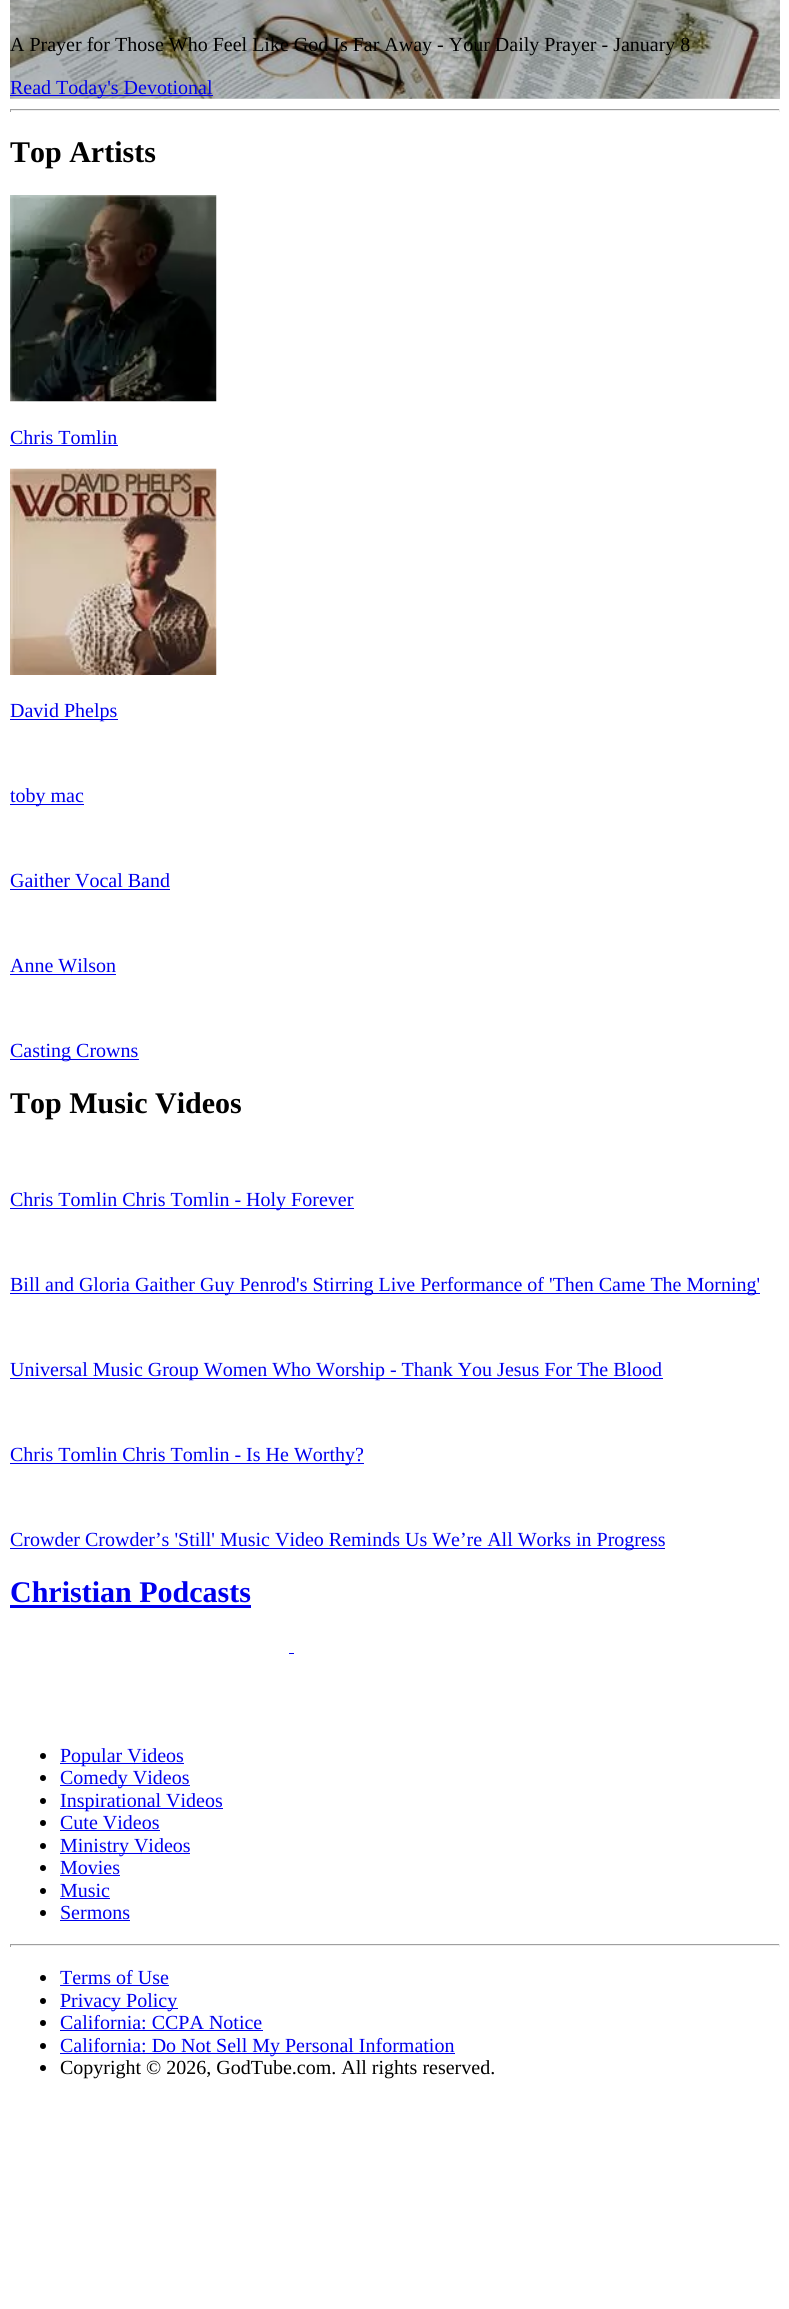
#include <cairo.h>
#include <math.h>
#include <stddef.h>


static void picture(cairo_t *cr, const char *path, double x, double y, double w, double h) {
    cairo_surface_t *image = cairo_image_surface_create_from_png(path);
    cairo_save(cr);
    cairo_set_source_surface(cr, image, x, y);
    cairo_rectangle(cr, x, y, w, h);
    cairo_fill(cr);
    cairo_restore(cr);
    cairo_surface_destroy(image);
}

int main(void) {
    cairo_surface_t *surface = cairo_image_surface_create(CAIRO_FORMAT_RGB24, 789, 2309);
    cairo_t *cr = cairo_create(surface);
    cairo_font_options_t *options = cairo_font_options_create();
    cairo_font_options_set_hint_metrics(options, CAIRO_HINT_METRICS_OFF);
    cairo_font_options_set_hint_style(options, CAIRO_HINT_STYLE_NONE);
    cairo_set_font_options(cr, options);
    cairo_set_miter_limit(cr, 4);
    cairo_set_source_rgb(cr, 1, 1, 1);
    cairo_paint(cr);
    picture(cr, "img1.png", 10, 0, 770, 99);
    cairo_select_font_face(cr, "Liberation Serif", CAIRO_FONT_SLANT_NORMAL, CAIRO_FONT_WEIGHT_NORMAL);
    cairo_set_font_size(cr, 20);
    cairo_set_source_rgb(cr, 0, 0, 0);
    cairo_move_to(cr, 10, 51);
    cairo_show_text(cr, "A Prayer for Those Who Feel Like God Is Far Away - Your Daily Prayer - January 8");
    cairo_set_source_rgb(cr, 0, 0, 0.933);
    cairo_rectangle(cr, 10, 95, 203, 1);
    cairo_fill(cr);
    cairo_move_to(cr, 10, 94);
    cairo_show_text(cr, "Read Today's Devotional");
    cairo_set_source_rgb(cr, 0.624, 0.624, 0.624);
    cairo_rectangle(cr, 10, 109, 770, 1);
    cairo_fill(cr);
    cairo_set_source_rgb(cr, 0.933, 0.933, 0.933);
    cairo_rectangle(cr, 779, 109, 1, 3);
    cairo_fill(cr);
    cairo_rectangle(cr, 10, 110, 770, 1);
    cairo_fill(cr);
    cairo_set_source_rgb(cr, 0.624, 0.624, 0.624);
    cairo_rectangle(cr, 10, 109, 1, 3);
    cairo_fill(cr);
    cairo_select_font_face(cr, "Liberation Serif", CAIRO_FONT_SLANT_NORMAL, CAIRO_FONT_WEIGHT_BOLD);
    cairo_set_font_size(cr, 30);
    cairo_set_source_rgb(cr, 0, 0, 0);
    cairo_move_to(cr, 10, 162);
    cairo_show_text(cr, "Top Artists");
    picture(cr, "img2.png", 10, 195, 207, 207);
    cairo_select_font_face(cr, "Liberation Serif", CAIRO_FONT_SLANT_NORMAL, CAIRO_FONT_WEIGHT_NORMAL);
    cairo_set_font_size(cr, 20);
    cairo_set_source_rgb(cr, 0, 0, 0.933);
    cairo_move_to(cr, 10, 444);
    cairo_show_text(cr, "Chris Tomlin");
    cairo_rectangle(cr, 10, 445, 108, 1);
    cairo_fill(cr);
    picture(cr, "img3.png", 10, 468, 207, 207);
    cairo_rectangle(cr, 10, 719, 108, 1);
    cairo_fill(cr);
    cairo_move_to(cr, 10, 717);
    cairo_show_text(cr, "David Phelps");
    cairo_rectangle(cr, 10, 804, 74, 1);
    cairo_fill(cr);
    cairo_move_to(cr, 10, 802);
    cairo_show_text(cr, "toby mac");
    cairo_move_to(cr, 10, 887);
    cairo_show_text(cr, "Gaither Vocal Band");
    cairo_rectangle(cr, 10, 889, 160, 1);
    cairo_fill(cr);
    cairo_move_to(cr, 10, 972);
    cairo_show_text(cr, "Anne Wilson");
    cairo_rectangle(cr, 10, 974, 106, 1);
    cairo_fill(cr);
    cairo_rectangle(cr, 10, 1059, 129, 1);
    cairo_fill(cr);
    cairo_move_to(cr, 10, 1057);
    cairo_show_text(cr, "Casting Crowns");
    cairo_select_font_face(cr, "Liberation Serif", CAIRO_FONT_SLANT_NORMAL, CAIRO_FONT_WEIGHT_BOLD);
    cairo_set_font_size(cr, 30);
    cairo_set_source_rgb(cr, 0, 0, 0);
    cairo_move_to(cr, 10, 1113);
    cairo_show_text(cr, "Top Music Videos");
    cairo_set_source_rgb(cr, 0, 0, 0.933);
    cairo_rectangle(cr, 10, 1208, 344, 1);
    cairo_fill(cr);
    cairo_select_font_face(cr, "Liberation Serif", CAIRO_FONT_SLANT_NORMAL, CAIRO_FONT_WEIGHT_NORMAL);
    cairo_set_font_size(cr, 20);
    cairo_move_to(cr, 10, 1206);
    cairo_show_text(cr, "Chris Tomlin Chris Tomlin - Holy Forever");
    cairo_rectangle(cr, 10, 1293, 750, 1);
    cairo_fill(cr);
    cairo_move_to(cr, 10, 1291);
    cairo_show_text(cr, "Bill and Gloria Gaither Guy Penrod's Stirring Live Performance of 'Then Came The Morning'");
    cairo_rectangle(cr, 10, 1378, 653, 1);
    cairo_fill(cr);
    cairo_move_to(cr, 10, 1376);
    cairo_show_text(cr, "Universal Music Group Women Who Worship - Thank You Jesus For The Blood");
    cairo_rectangle(cr, 10, 1463, 354, 1);
    cairo_fill(cr);
    cairo_move_to(cr, 10, 1461);
    cairo_show_text(cr, "Chris Tomlin Chris Tomlin - Is He Worthy?");
    cairo_rectangle(cr, 10, 1548, 655, 1);
    cairo_fill(cr);
    cairo_move_to(cr, 10, 1546);
    cairo_show_text(cr, "Crowder Crowder’s 'Still' Music Video Reminds Us We’re All Works in Progress");
    cairo_select_font_face(cr, "Liberation Serif", CAIRO_FONT_SLANT_NORMAL, CAIRO_FONT_WEIGHT_BOLD);
    cairo_set_font_size(cr, 30);
    cairo_move_to(cr, 10, 1602);
    cairo_show_text(cr, "Christian Podcasts");
    cairo_rectangle(cr, 10, 1605, 241, 3);
    cairo_fill(cr);
    cairo_rectangle(cr, 289, 1653, 5, 1);
    cairo_fill(cr);
    cairo_set_source_rgb(cr, 0, 0, 0);
    cairo_arc(cr, 43, 1756, 3, 0, 2 * M_PI);
    cairo_fill(cr);
    cairo_set_source_rgb(cr, 0, 0, 0.933);
    cairo_rectangle(cr, 60, 1763, 124, 1);
    cairo_fill(cr);
    cairo_select_font_face(cr, "Liberation Serif", CAIRO_FONT_SLANT_NORMAL, CAIRO_FONT_WEIGHT_NORMAL);
    cairo_set_font_size(cr, 20);
    cairo_move_to(cr, 60, 1762);
    cairo_show_text(cr, "Popular Videos");
    cairo_set_source_rgb(cr, 0, 0, 0);
    cairo_new_path(cr);
    cairo_arc(cr, 43, 1778, 3, 0, 2 * M_PI);
    cairo_fill(cr);
    cairo_set_source_rgb(cr, 0, 0, 0.933);
    cairo_rectangle(cr, 60, 1785, 130, 1);
    cairo_fill(cr);
    cairo_move_to(cr, 60, 1784);
    cairo_show_text(cr, "Comedy Videos");
    cairo_set_source_rgb(cr, 0, 0, 0);
    cairo_new_path(cr);
    cairo_arc(cr, 43, 1801, 3, 0, 2 * M_PI);
    cairo_fill(cr);
    cairo_set_source_rgb(cr, 0, 0, 0.933);
    cairo_rectangle(cr, 60, 1808, 163, 1);
    cairo_fill(cr);
    cairo_move_to(cr, 60, 1807);
    cairo_show_text(cr, "Inspirational Videos");
    cairo_set_source_rgb(cr, 0, 0, 0);
    cairo_new_path(cr);
    cairo_arc(cr, 43, 1823, 3, 0, 2 * M_PI);
    cairo_fill(cr);
    cairo_set_source_rgb(cr, 0, 0, 0.933);
    cairo_move_to(cr, 60, 1829);
    cairo_show_text(cr, "Cute Videos");
    cairo_rectangle(cr, 60, 1830, 100, 1);
    cairo_fill(cr);
    cairo_set_source_rgb(cr, 0, 0, 0);
    cairo_arc(cr, 43, 1846, 3, 0, 2 * M_PI);
    cairo_fill(cr);
    cairo_set_source_rgb(cr, 0, 0, 0.933);
    cairo_rectangle(cr, 60, 1853, 130, 1);
    cairo_fill(cr);
    cairo_move_to(cr, 60, 1852);
    cairo_show_text(cr, "Ministry Videos");
    cairo_set_source_rgb(cr, 0, 0, 0);
    cairo_new_path(cr);
    cairo_arc(cr, 43, 1868, 3, 0, 2 * M_PI);
    cairo_fill(cr);
    cairo_set_source_rgb(cr, 0, 0, 0.933);
    cairo_move_to(cr, 60, 1874);
    cairo_show_text(cr, "Movies");
    cairo_rectangle(cr, 60, 1875, 60, 1);
    cairo_fill(cr);
    cairo_set_source_rgb(cr, 0, 0, 0);
    cairo_arc(cr, 43, 1891, 3, 0, 2 * M_PI);
    cairo_fill(cr);
    cairo_set_source_rgb(cr, 0, 0, 0.933);
    cairo_move_to(cr, 60, 1897);
    cairo_show_text(cr, "Music");
    cairo_rectangle(cr, 60, 1898, 50, 1);
    cairo_fill(cr);
    cairo_set_source_rgb(cr, 0, 0, 0);
    cairo_arc(cr, 43, 1913, 3, 0, 2 * M_PI);
    cairo_fill(cr);
    cairo_set_source_rgb(cr, 0, 0, 0.933);
    cairo_move_to(cr, 60, 1919);
    cairo_show_text(cr, "Sermons");
    cairo_rectangle(cr, 60, 1920, 70, 1);
    cairo_fill(cr);
    cairo_set_source_rgb(cr, 0.624, 0.624, 0.624);
    cairo_rectangle(cr, 10, 1944, 770, 1);
    cairo_fill(cr);
    cairo_set_source_rgb(cr, 0.933, 0.933, 0.933);
    cairo_rectangle(cr, 779, 1944, 1, 3);
    cairo_fill(cr);
    cairo_rectangle(cr, 10, 1945, 770, 1);
    cairo_fill(cr);
    cairo_set_source_rgb(cr, 0.624, 0.624, 0.624);
    cairo_rectangle(cr, 10, 1944, 1, 3);
    cairo_fill(cr);
    cairo_set_source_rgb(cr, 0, 0, 0);
    cairo_arc(cr, 43, 1978, 3, 0, 2 * M_PI);
    cairo_fill(cr);
    cairo_set_source_rgb(cr, 0, 0, 0.933);
    cairo_move_to(cr, 60, 1984);
    cairo_show_text(cr, "Terms of Use");
    cairo_rectangle(cr, 60, 1985, 109, 1);
    cairo_fill(cr);
    cairo_set_source_rgb(cr, 0, 0, 0);
    cairo_arc(cr, 43, 2001, 3, 0, 2 * M_PI);
    cairo_fill(cr);
    cairo_set_source_rgb(cr, 0, 0, 0.933);
    cairo_rectangle(cr, 60, 2008, 118, 1);
    cairo_fill(cr);
    cairo_move_to(cr, 60, 2007);
    cairo_show_text(cr, "Privacy Policy");
    cairo_set_source_rgb(cr, 0, 0, 0);
    cairo_new_path(cr);
    cairo_arc(cr, 43, 2023, 3, 0, 2 * M_PI);
    cairo_fill(cr);
    cairo_set_source_rgb(cr, 0, 0, 0.933);
    cairo_move_to(cr, 60, 2029);
    cairo_show_text(cr, "California: CCPA Notice");
    cairo_rectangle(cr, 60, 2030, 203, 1);
    cairo_fill(cr);
    cairo_set_source_rgb(cr, 0, 0, 0);
    cairo_arc(cr, 43, 2046, 3, 0, 2 * M_PI);
    cairo_fill(cr);
    cairo_set_source_rgb(cr, 0, 0, 0.933);
    cairo_rectangle(cr, 60, 2053, 395, 1);
    cairo_fill(cr);
    cairo_move_to(cr, 60, 2052);
    cairo_show_text(cr, "California: Do Not Sell My Personal Information");
    cairo_set_source_rgb(cr, 0, 0, 0);
    cairo_new_path(cr);
    cairo_arc(cr, 43, 2068, 3, 0, 2 * M_PI);
    cairo_fill(cr);
    cairo_move_to(cr, 60, 2074);
    cairo_show_text(cr, "Copyright © 2026, GodTube.com. All rights reserved.");
    cairo_surface_write_to_png(surface, "page.png");
    cairo_font_options_destroy(options);
    cairo_destroy(cr);
    cairo_surface_destroy(surface);
    return 0;
}
